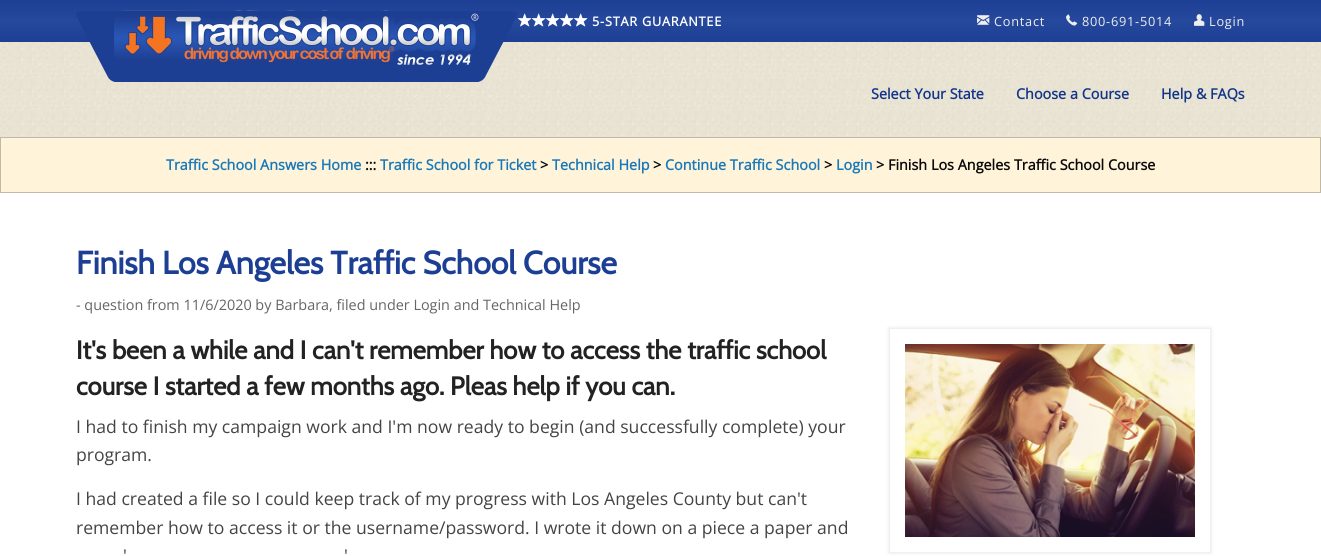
#include <cairo.h>
#include <math.h>
#include <stddef.h>


static void spaced_text(cairo_t *cr, double x, double y, const char *s, double letter, double word) {
    cairo_move_to(cr, x, y);
    while (*s) {
        char ch[5] = {0};
        int n = 0;
        do ch[n++] = *s++; while ((*s & 0xC0) == 0x80);
        cairo_show_text(cr, ch);
        cairo_rel_move_to(cr, letter + word * (*ch == ' '), 0);
    }
}

static void round_rect(cairo_t *cr, double x, double y, double w, double h, double r) {
    cairo_new_sub_path(cr);
    cairo_arc(cr, x + w - r, y + h - r, r, 0, M_PI / 2);
    cairo_arc(cr, x + r, y + h - r, r, M_PI / 2, M_PI);
    cairo_arc(cr, x + r, y + r, r, M_PI, 1.5 * M_PI);
    cairo_arc(cr, x + w - r, y + r, r, 1.5 * M_PI, 2 * M_PI);
    cairo_close_path(cr);
}

static void shadow(cairo_t *cr, double x, double y, double w, double h, double r, double blur, double alpha) {
    cairo_push_group_with_content(cr, CAIRO_CONTENT_ALPHA);
    cairo_set_operator(cr, CAIRO_OPERATOR_SOURCE);
    for (int i = 15; i >= -15 && fmin(w, h) + blur * i / 3 > 0; i -= 2) {
        double e = blur * i / 6;
        cairo_set_source_rgba(cr, 0, 0, 0, alpha * erfc((i - 1) / 8.5) / 2);
        round_rect(cr, x - e, y - e, w + 2 * e, h + 2 * e, fmax(0, fmin(r + e + blur * .6, fmin(w, h) / 2 + e)));
        cairo_fill(cr);
    }
    cairo_pattern_t *soft = cairo_pop_group(cr);
    cairo_mask(cr, soft);
    cairo_pattern_destroy(soft);
}

static void picture(cairo_t *cr, const char *path, double x, double y, double w, double h) {
    cairo_surface_t *image = cairo_image_surface_create_from_png(path);
    cairo_save(cr);
    cairo_set_source_surface(cr, image, x, y);
    cairo_rectangle(cr, x, y, w, h);
    cairo_fill(cr);
    cairo_restore(cr);
    cairo_surface_destroy(image);
}

int main(void) {
    cairo_surface_t *surface = cairo_image_surface_create(CAIRO_FORMAT_RGB24, 1321, 556);
    cairo_t *cr = cairo_create(surface);
    cairo_font_options_t *options = cairo_font_options_create();
    cairo_font_options_set_hint_metrics(options, CAIRO_HINT_METRICS_OFF);
    cairo_font_options_set_hint_style(options, CAIRO_HINT_STYLE_NONE);
    cairo_set_font_options(cr, options);
    cairo_set_miter_limit(cr, 4);
    cairo_pattern_t *gradient;
    cairo_set_source_rgb(cr, 1, 1, 1);
    cairo_paint(cr);
    gradient = cairo_pattern_create_linear(661, 42, 661, 0);
    cairo_pattern_add_color_stop_rgba(gradient, 0, 0.11, 0.247, 0.58, 1);
    cairo_pattern_add_color_stop_rgba(gradient, 0.5, 0.149, 0.286, 0.62, 1);
    cairo_pattern_add_color_stop_rgba(gradient, 1, 0.11, 0.247, 0.58, 1);
    cairo_set_source(cr, gradient);
    cairo_pattern_destroy(gradient);
    cairo_rectangle(cr, 0, 0, 1321, 42);
    cairo_fill(cr);
    picture(cr, "img6.png", 0, 42, 1321, 95);
    picture(cr, "img1.png", 76, 10, 441, 72);
    picture(cr, "img2.png", 518, 13, 14, 14);
    picture(cr, "img2.png", 532, 13, 14, 14);
    picture(cr, "img2.png", 546, 13, 14, 14);
    picture(cr, "img2.png", 560, 13, 14, 14);
    picture(cr, "img2.png", 574, 13, 14, 14);
    cairo_select_font_face(cr, "Open Sans", CAIRO_FONT_SLANT_NORMAL, CAIRO_FONT_WEIGHT_BOLD);
    cairo_set_font_size(cr, 12.75);
    cairo_set_source_rgb(cr, 1, 1, 1);
    spaced_text(cr, 592, 26, "5-STAR GUARANTEE", 0.75, 0);
    picture(cr, "img3.png", 977, 15, 13, 10);
    cairo_select_font_face(cr, "Open Sans", CAIRO_FONT_SLANT_NORMAL, CAIRO_FONT_WEIGHT_NORMAL);
    cairo_set_source_rgb(cr, 0.933, 0.933, 0.933);
    spaced_text(cr, 994, 26, "Contact", 0.75, 0);
    picture(cr, "img4.png", 1066, 14, 12, 12);
    spaced_text(cr, 1082, 26, "800-691-5014", 0.75, 0);
    picture(cr, "img5.png", 1194, 14, 11, 12);
    spaced_text(cr, 1209, 26, "Login", 0.75, 0);
    cairo_select_font_face(cr, "Open Sans", CAIRO_FONT_SLANT_NORMAL, CAIRO_FONT_WEIGHT_BOLD);
    cairo_set_font_size(cr, 14.4);
    cairo_set_source_rgb(cr, 0.071, 0.208, 0.541);
    cairo_move_to(cr, 871, 99);
    cairo_show_text(cr, "Select Your State");
    cairo_move_to(cr, 1016, 99);
    cairo_show_text(cr, "Choose a Course");
    cairo_move_to(cr, 1161, 99);
    cairo_show_text(cr, "Help & FAQs");
    cairo_set_source_rgb(cr, 1, 0.953, 0.851);
    cairo_rectangle(cr, 0.5, 137.5, 1320, 55);
    cairo_fill_preserve(cr);
    cairo_set_source_rgb(cr, 0.761, 0.725, 0.647);
    cairo_set_line_width(cr, 1);
    cairo_stroke(cr);
    cairo_set_source_rgb(cr, 0.09, 0.475, 0.729);
    cairo_move_to(cr, 166, 170);
    cairo_show_text(cr, "Traffic School Answers Home");
    cairo_set_source_rgb(cr, 0.039, 0.039, 0.039);
    cairo_move_to(cr, 365, 170);
    cairo_show_text(cr, ":::");
    cairo_set_source_rgb(cr, 0.09, 0.475, 0.729);
    cairo_move_to(cr, 380, 170);
    cairo_show_text(cr, "Traffic School for Ticket");
    cairo_set_source_rgb(cr, 0.039, 0.039, 0.039);
    cairo_move_to(cr, 540, 170);
    cairo_show_text(cr, ">");
    cairo_set_source_rgb(cr, 0.09, 0.475, 0.729);
    cairo_move_to(cr, 552, 170);
    cairo_show_text(cr, "Technical Help");
    cairo_set_source_rgb(cr, 0.039, 0.039, 0.039);
    cairo_move_to(cr, 653, 170);
    cairo_show_text(cr, ">");
    cairo_set_source_rgb(cr, 0.09, 0.475, 0.729);
    cairo_move_to(cr, 665, 170);
    cairo_show_text(cr, "Continue Traffic School");
    cairo_set_source_rgb(cr, 0.039, 0.039, 0.039);
    cairo_move_to(cr, 824, 170);
    cairo_show_text(cr, ">");
    cairo_set_source_rgb(cr, 0.09, 0.475, 0.729);
    cairo_move_to(cr, 836, 170);
    cairo_show_text(cr, "Login");
    cairo_set_source_rgb(cr, 0.039, 0.039, 0.039);
    cairo_move_to(cr, 876, 170);
    cairo_show_text(cr, "> Finish Los Angeles Traffic School Course");
    cairo_select_font_face(cr, "Cabin", CAIRO_FONT_SLANT_NORMAL, CAIRO_FONT_WEIGHT_BOLD);
    cairo_set_font_size(cr, 32);
    cairo_set_source_rgb(cr, 0.11, 0.247, 0.58);
    cairo_move_to(cr, 76, 274);
    cairo_show_text(cr, "Finish Los Angeles Traffic School Course");
    cairo_select_font_face(cr, "Open Sans", CAIRO_FONT_SLANT_NORMAL, CAIRO_FONT_WEIGHT_NORMAL);
    cairo_set_font_size(cr, 14.4);
    cairo_set_source_rgb(cr, 0.396, 0.396, 0.396);
    cairo_move_to(cr, 76, 310);
    cairo_show_text(cr, "- question from 11/6/2020 by Barbara, filed under Login and Technical Help");
    cairo_select_font_face(cr, "Cabin", CAIRO_FONT_SLANT_NORMAL, CAIRO_FONT_WEIGHT_BOLD);
    cairo_set_font_size(cr, 25.6);
    cairo_set_source_rgb(cr, 0.133, 0.133, 0.133);
    cairo_move_to(cr, 76, 359);
    cairo_show_text(cr, "It's been a while and I can't remember how to access the traffic school");
    cairo_move_to(cr, 76, 395);
    cairo_show_text(cr, "course I started a few months ago. Pleas help if you can.");
    cairo_save(cr);
    cairo_set_fill_rule(cr, CAIRO_FILL_RULE_EVEN_ODD);
    cairo_new_path(cr);
    cairo_move_to(cr, 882, 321);
    cairo_line_to(cr, 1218, 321);
    cairo_line_to(cr, 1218, 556);
    cairo_line_to(cr, 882, 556);
    cairo_close_path(cr);
    cairo_move_to(cr, 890, 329);
    cairo_line_to(cr, 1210, 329);
    cairo_line_to(cr, 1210, 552);
    cairo_line_to(cr, 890, 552);
    cairo_close_path(cr);
    cairo_clip(cr);
    cairo_set_source_rgb(cr, 0, 0, 0);
    shadow(cr, 889, 328, 322, 225, 0, 2, 0.1);
    cairo_restore(cr);
    picture(cr, "img7.png", 905, 344, 290, 193);
    cairo_select_font_face(cr, "Open Sans", CAIRO_FONT_SLANT_NORMAL, CAIRO_FONT_WEIGHT_NORMAL);
    cairo_set_font_size(cr, 17.6);
    cairo_set_source_rgb(cr, 0.267, 0.267, 0.267);
    cairo_move_to(cr, 76, 433);
    cairo_show_text(cr, "I had to finish my campaign work and I'm now ready to begin (and successfully complete) your");
    cairo_move_to(cr, 76, 461);
    cairo_show_text(cr, "program.");
    cairo_move_to(cr, 76, 505);
    cairo_show_text(cr, "I had created a file so I could keep track of my progress with Los Angeles County but can't");
    cairo_move_to(cr, 76, 534);
    cairo_show_text(cr, "remember how to access it or the username/password. I wrote it down on a piece a paper and");
    cairo_move_to(cr, 123, 562);
    cairo_show_text(cr, "'");
    cairo_move_to(cr, 344, 562);
    cairo_show_text(cr, "'");
    cairo_surface_write_to_png(surface, "page.png");
    cairo_font_options_destroy(options);
    cairo_destroy(cr);
    cairo_surface_destroy(surface);
    return 0;
}
